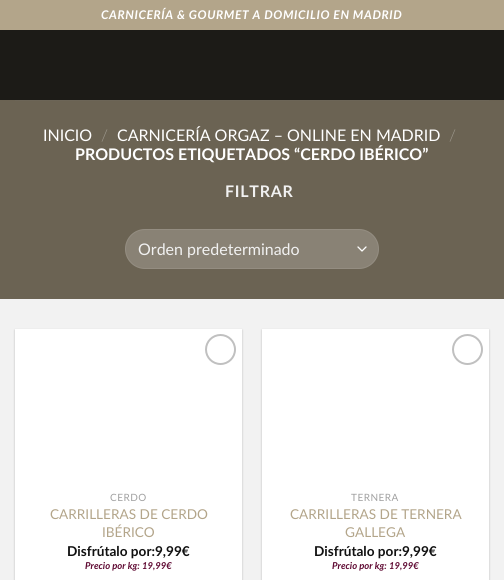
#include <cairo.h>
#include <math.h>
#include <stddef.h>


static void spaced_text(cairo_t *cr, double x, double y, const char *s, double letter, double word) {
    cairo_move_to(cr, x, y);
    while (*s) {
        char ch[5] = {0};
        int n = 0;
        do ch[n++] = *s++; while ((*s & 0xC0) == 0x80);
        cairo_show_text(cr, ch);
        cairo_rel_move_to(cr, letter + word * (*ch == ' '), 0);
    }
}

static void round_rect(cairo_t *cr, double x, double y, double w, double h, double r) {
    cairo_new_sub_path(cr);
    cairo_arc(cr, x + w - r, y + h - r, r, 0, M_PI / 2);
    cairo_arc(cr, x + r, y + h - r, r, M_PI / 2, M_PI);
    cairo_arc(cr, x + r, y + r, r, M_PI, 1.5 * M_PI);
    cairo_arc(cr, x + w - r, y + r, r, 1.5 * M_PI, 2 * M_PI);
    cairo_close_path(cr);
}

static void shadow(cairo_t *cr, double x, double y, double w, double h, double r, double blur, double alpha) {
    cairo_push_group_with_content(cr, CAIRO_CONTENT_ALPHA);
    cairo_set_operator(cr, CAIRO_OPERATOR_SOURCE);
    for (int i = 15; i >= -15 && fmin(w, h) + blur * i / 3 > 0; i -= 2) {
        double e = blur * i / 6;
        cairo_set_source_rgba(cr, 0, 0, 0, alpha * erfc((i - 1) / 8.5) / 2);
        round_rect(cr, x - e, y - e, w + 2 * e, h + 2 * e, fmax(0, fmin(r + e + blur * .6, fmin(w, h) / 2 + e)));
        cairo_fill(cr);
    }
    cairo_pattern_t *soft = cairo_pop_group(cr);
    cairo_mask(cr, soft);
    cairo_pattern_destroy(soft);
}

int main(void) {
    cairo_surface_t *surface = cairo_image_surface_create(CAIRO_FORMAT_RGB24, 504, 580);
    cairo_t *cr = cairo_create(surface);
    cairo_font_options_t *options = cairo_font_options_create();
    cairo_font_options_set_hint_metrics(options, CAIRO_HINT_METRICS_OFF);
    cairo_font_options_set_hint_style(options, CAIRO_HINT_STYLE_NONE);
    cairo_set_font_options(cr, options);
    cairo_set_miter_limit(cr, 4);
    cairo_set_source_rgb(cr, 0.949, 0.949, 0.949);
    cairo_paint(cr);
    cairo_set_source_rgb(cr, 0.702, 0.647, 0.541);
    cairo_rectangle(cr, 0, 0, 504, 30);
    cairo_fill(cr);
    cairo_select_font_face(cr, "Lato", CAIRO_FONT_SLANT_ITALIC, CAIRO_FONT_WEIGHT_BOLD);
    cairo_set_font_size(cr, 12);
    cairo_set_source_rgb(cr, 1, 1, 1);
    spaced_text(cr, 101, 19, "CARNICERÍA & GOURMET A DOMICILIO EN MADRID", 0.6, 0);
    cairo_set_source_rgb(cr, 0.11, 0.106, 0.09);
    cairo_rectangle(cr, 0, 30, 504, 70);
    cairo_fill(cr);
    cairo_set_source_rgb(cr, 0.42, 0.388, 0.325);
    cairo_rectangle(cr, 0, 100, 504, 199);
    cairo_fill(cr);
    cairo_set_source_rgb(cr, 0.424, 0.396, 0.341);
    cairo_rectangle(cr, 15, 100, 474, 1);
    cairo_fill(cr);
    cairo_select_font_face(cr, "Lato", CAIRO_FONT_SLANT_NORMAL, CAIRO_FONT_WEIGHT_NORMAL);
    cairo_set_font_size(cr, 16);
    cairo_set_source_rgb(cr, 1, 1, 1);
    cairo_move_to(cr, 43, 141);
    cairo_show_text(cr, "INICIO");
    cairo_select_font_face(cr, "Lato Light", CAIRO_FONT_SLANT_NORMAL, CAIRO_FONT_WEIGHT_NORMAL);
    cairo_set_source_rgb(cr, 0.624, 0.604, 0.561);
    cairo_move_to(cr, 101, 141);
    cairo_show_text(cr, "/");
    cairo_select_font_face(cr, "Lato", CAIRO_FONT_SLANT_NORMAL, CAIRO_FONT_WEIGHT_NORMAL);
    cairo_set_source_rgb(cr, 1, 1, 1);
    cairo_move_to(cr, 117, 141);
    cairo_show_text(cr, "CARNICERÍA ORGAZ – ONLINE EN MADRID");
    cairo_select_font_face(cr, "Lato Light", CAIRO_FONT_SLANT_NORMAL, CAIRO_FONT_WEIGHT_NORMAL);
    cairo_set_source_rgb(cr, 0.624, 0.604, 0.561);
    cairo_move_to(cr, 449, 141);
    cairo_show_text(cr, "/");
    cairo_select_font_face(cr, "Lato", CAIRO_FONT_SLANT_NORMAL, CAIRO_FONT_WEIGHT_BOLD);
    cairo_set_source_rgb(cr, 1, 1, 1);
    cairo_move_to(cr, 75, 160);
    cairo_show_text(cr, "PRODUCTOS ETIQUETADOS “CERDO IBÉRICO”");
    cairo_set_source_rgb(cr, 0.945, 0.945, 0.945);
    spaced_text(cr, 225, 197, "FILTRAR", 0.75, 0);
    cairo_set_source_rgb(cr, 0.537, 0.51, 0.459);
    round_rect(cr, 125, 229, 254, 40, 20);
    cairo_fill(cr);
    cairo_new_path(cr);
    cairo_move_to(cr, 358, 247);
    cairo_line_to(cr, 362, 251);
    cairo_line_to(cr, 366, 247);
    cairo_set_source_rgb(cr, 1, 1, 1);
    cairo_set_line_width(cr, 1.3);
    cairo_set_line_cap(cr, CAIRO_LINE_CAP_ROUND);
    cairo_set_line_join(cr, CAIRO_LINE_JOIN_ROUND);
    cairo_stroke(cr);
    round_rect(cr, 125.5, 229.5, 253, 39, 19.5);
    cairo_set_source_rgba(cr, 1, 1, 1, 0.09);
    cairo_set_line_width(cr, 1);
    cairo_set_line_cap(cr, CAIRO_LINE_CAP_BUTT);
    cairo_set_line_join(cr, CAIRO_LINE_JOIN_MITER);
    cairo_stroke(cr);
    cairo_select_font_face(cr, "Lato", CAIRO_FONT_SLANT_NORMAL, CAIRO_FONT_WEIGHT_NORMAL);
    cairo_set_source_rgb(cr, 0.945, 0.945, 0.945);
    cairo_move_to(cr, 138, 255);
    cairo_show_text(cr, "Orden predeterminado");
    cairo_set_source_rgb(cr, 0, 0, 0);
    shadow(cr, 15, 330, 227, 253, 0, 1, 0.24);
    cairo_set_source_rgb(cr, 1, 1, 1);
    cairo_rectangle(cr, 15, 329, 227, 251);
    cairo_fill(cr);
    cairo_arc(cr, 220.5, 349.5, 14.5, 0, 2 * M_PI);
    cairo_set_source_rgb(cr, 0.753, 0.753, 0.753);
    cairo_set_line_width(cr, 2);
    cairo_stroke(cr);
    cairo_set_font_size(cr, 10);
    cairo_set_source_rgb(cr, 0.627, 0.627, 0.627);
    spaced_text(cr, 110, 501, "CERDO", 0.5, 0);
    cairo_set_font_size(cr, 13.6);
    cairo_set_source_rgb(cr, 0.702, 0.647, 0.541);
    cairo_move_to(cr, 50, 519);
    cairo_show_text(cr, "CARRILLERAS DE CERDO");
    cairo_move_to(cr, 102, 537);
    cairo_show_text(cr, "IBÉRICO");
    cairo_select_font_face(cr, "Lato", CAIRO_FONT_SLANT_NORMAL, CAIRO_FONT_WEIGHT_BOLD);
    cairo_set_source_rgb(cr, 0.067, 0.067, 0.067);
    cairo_move_to(cr, 67, 556);
    cairo_show_text(cr, "Disfrútalo por:9,99€");
    cairo_select_font_face(cr, "Lato", CAIRO_FONT_SLANT_ITALIC, CAIRO_FONT_WEIGHT_BOLD);
    cairo_set_font_size(cr, 9.5);
    cairo_set_source_rgb(cr, 0.373, 0.039, 0.196);
    cairo_move_to(cr, 85, 569);
    cairo_show_text(cr, "Precio por kg:");
    cairo_move_to(cr, 142, 569);
    cairo_show_text(cr, "19,99€");
    cairo_set_source_rgb(cr, 0, 0, 0);
    shadow(cr, 262, 330, 227, 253, 0, 1, 0.24);
    cairo_set_source_rgb(cr, 1, 1, 1);
    cairo_rectangle(cr, 262, 329, 227, 251);
    cairo_fill(cr);
    cairo_arc(cr, 467.5, 349.5, 14.5, 0, 2 * M_PI);
    cairo_set_source_rgb(cr, 0.753, 0.753, 0.753);
    cairo_stroke(cr);
    cairo_select_font_face(cr, "Lato", CAIRO_FONT_SLANT_NORMAL, CAIRO_FONT_WEIGHT_NORMAL);
    cairo_set_font_size(cr, 10);
    cairo_set_source_rgb(cr, 0.627, 0.627, 0.627);
    spaced_text(cr, 351, 501, "TERNERA", 0.5, 0);
    cairo_set_font_size(cr, 13.6);
    cairo_set_source_rgb(cr, 0.702, 0.647, 0.541);
    cairo_move_to(cr, 290, 519);
    cairo_show_text(cr, "CARRILLERAS DE TERNERA");
    cairo_move_to(cr, 345, 537);
    cairo_show_text(cr, "GALLEGA");
    cairo_select_font_face(cr, "Lato", CAIRO_FONT_SLANT_NORMAL, CAIRO_FONT_WEIGHT_BOLD);
    cairo_set_source_rgb(cr, 0.067, 0.067, 0.067);
    cairo_move_to(cr, 314, 556);
    cairo_show_text(cr, "Disfrútalo por:9,99€");
    cairo_select_font_face(cr, "Lato", CAIRO_FONT_SLANT_ITALIC, CAIRO_FONT_WEIGHT_BOLD);
    cairo_set_font_size(cr, 9.5);
    cairo_set_source_rgb(cr, 0.373, 0.039, 0.196);
    cairo_move_to(cr, 332, 569);
    cairo_show_text(cr, "Precio por kg:");
    cairo_move_to(cr, 389, 569);
    cairo_show_text(cr, "19,99€");
    cairo_surface_write_to_png(surface, "page.png");
    cairo_font_options_destroy(options);
    cairo_destroy(cr);
    cairo_surface_destroy(surface);
    return 0;
}
